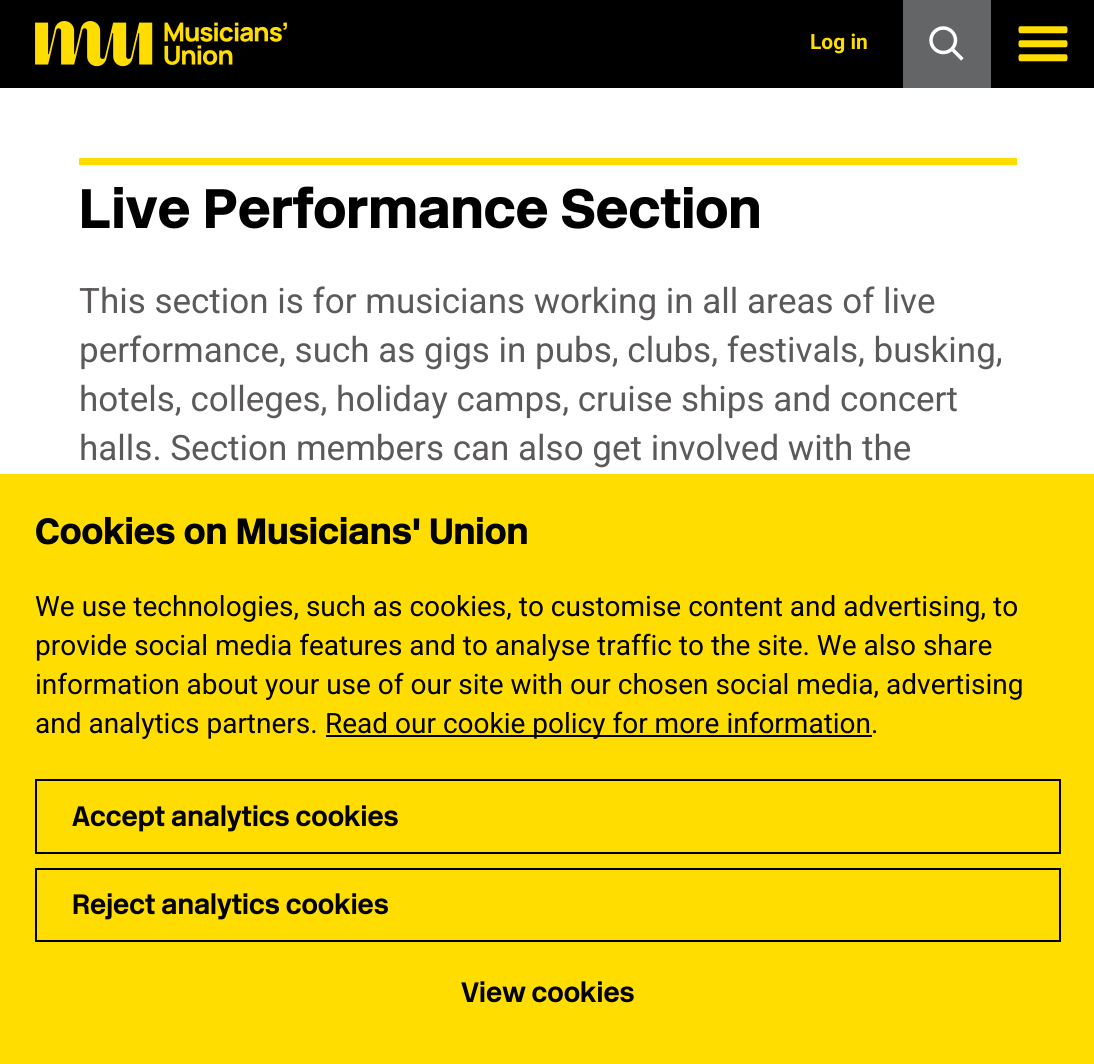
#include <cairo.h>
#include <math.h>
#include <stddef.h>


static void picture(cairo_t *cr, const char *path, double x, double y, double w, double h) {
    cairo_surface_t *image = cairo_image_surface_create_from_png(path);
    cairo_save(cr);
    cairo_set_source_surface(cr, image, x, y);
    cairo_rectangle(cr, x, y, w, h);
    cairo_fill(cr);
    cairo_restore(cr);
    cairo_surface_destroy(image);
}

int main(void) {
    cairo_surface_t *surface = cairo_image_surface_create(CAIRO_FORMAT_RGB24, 1094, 1064);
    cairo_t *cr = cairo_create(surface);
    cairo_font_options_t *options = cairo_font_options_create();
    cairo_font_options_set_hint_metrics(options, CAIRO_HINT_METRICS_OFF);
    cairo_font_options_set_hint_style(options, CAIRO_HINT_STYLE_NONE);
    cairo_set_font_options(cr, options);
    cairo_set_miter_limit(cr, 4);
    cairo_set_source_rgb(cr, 1, 1, 1);
    cairo_paint(cr);
    cairo_set_source_rgb(cr, 0, 0, 0);
    cairo_rectangle(cr, 0, 0, 1094, 88);
    cairo_fill(cr);
    picture(cr, "img1.png", 35, 21, 252, 46);
    cairo_select_font_face(cr, "Roboto", CAIRO_FONT_SLANT_NORMAL, CAIRO_FONT_WEIGHT_BOLD);
    cairo_set_font_size(cr, 21);
    cairo_set_source_rgb(cr, 1, 0.867, 0);
    cairo_move_to(cr, 810, 49);
    cairo_show_text(cr, "Log in");
    cairo_set_source_rgb(cr, 0.392, 0.396, 0.404);
    cairo_rectangle(cr, 903, 0, 88, 88);
    cairo_fill(cr);
    picture(cr, "img2.png", 929, 26, 35, 35);
    picture(cr, "img3.png", 1018, 26, 50, 36);
    cairo_set_source_rgb(cr, 1, 0.867, 0);
    cairo_rectangle(cr, 79, 158, 938, 7);
    cairo_fill(cr);
    cairo_select_font_face(cr, "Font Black", CAIRO_FONT_SLANT_NORMAL, CAIRO_FONT_WEIGHT_NORMAL);
    cairo_set_font_size(cr, 55.4);
    cairo_set_source_rgb(cr, 0, 0, 0);
    cairo_move_to(cr, 79, 228);
    cairo_show_text(cr, "Live Performance Section");
    cairo_select_font_face(cr, "Roboto", CAIRO_FONT_SLANT_NORMAL, CAIRO_FONT_WEIGHT_NORMAL);
    cairo_set_font_size(cr, 35);
    cairo_set_source_rgb(cr, 0.361, 0.349, 0.349);
    cairo_move_to(cr, 79, 313);
    cairo_show_text(cr, "This section is for musicians working in all areas of live");
    cairo_move_to(cr, 79, 362);
    cairo_show_text(cr, "performance, such as gigs in pubs, clubs, festivals, busking,");
    cairo_move_to(cr, 79, 411);
    cairo_show_text(cr, "hotels, colleges, holiday camps, cruise ships and concert");
    cairo_move_to(cr, 79, 460);
    cairo_show_text(cr, "halls. Section members can also get involved with the");
    cairo_set_source_rgb(cr, 1, 0.867, 0);
    cairo_rectangle(cr, 0, 474, 1094, 590);
    cairo_fill(cr);
    cairo_select_font_face(cr, "Font Black", CAIRO_FONT_SLANT_NORMAL, CAIRO_FONT_WEIGHT_NORMAL);
    cairo_set_font_size(cr, 36.5);
    cairo_set_source_rgb(cr, 0, 0, 0);
    cairo_move_to(cr, 35, 544);
    cairo_show_text(cr, "Cookies on Musicians' Union");
    cairo_select_font_face(cr, "Roboto", CAIRO_FONT_SLANT_NORMAL, CAIRO_FONT_WEIGHT_NORMAL);
    cairo_set_font_size(cr, 28);
    cairo_move_to(cr, 35, 616);
    cairo_show_text(cr, "We use technologies, such as cookies, to customise content and advertising, to");
    cairo_move_to(cr, 35, 655);
    cairo_show_text(cr, "provide social media features and to analyse traffic to the site. We also share");
    cairo_move_to(cr, 35, 694);
    cairo_show_text(cr, "information about your use of our site with our chosen social media, advertising");
    cairo_move_to(cr, 35, 733);
    cairo_show_text(cr, "and analytics partners.");
    cairo_rectangle(cr, 326, 735, 546, 2);
    cairo_fill(cr);
    cairo_move_to(cr, 325, 733);
    cairo_show_text(cr, "Read our cookie policy for more information.");
    cairo_rectangle(cr, 36, 780, 1024, 73);
    cairo_stroke(cr);
    cairo_select_font_face(cr, "Font", CAIRO_FONT_SLANT_NORMAL, CAIRO_FONT_WEIGHT_BOLD);
    cairo_move_to(cr, 72, 826);
    cairo_show_text(cr, "Accept analytics cookies");
    cairo_rectangle(cr, 36, 869, 1024, 72);
    cairo_stroke(cr);
    cairo_move_to(cr, 72, 914);
    cairo_show_text(cr, "Reject analytics cookies");
    cairo_move_to(cr, 461, 1002);
    cairo_show_text(cr, "View cookies");
    cairo_surface_write_to_png(surface, "page.png");
    cairo_font_options_destroy(options);
    cairo_destroy(cr);
    cairo_surface_destroy(surface);
    return 0;
}
